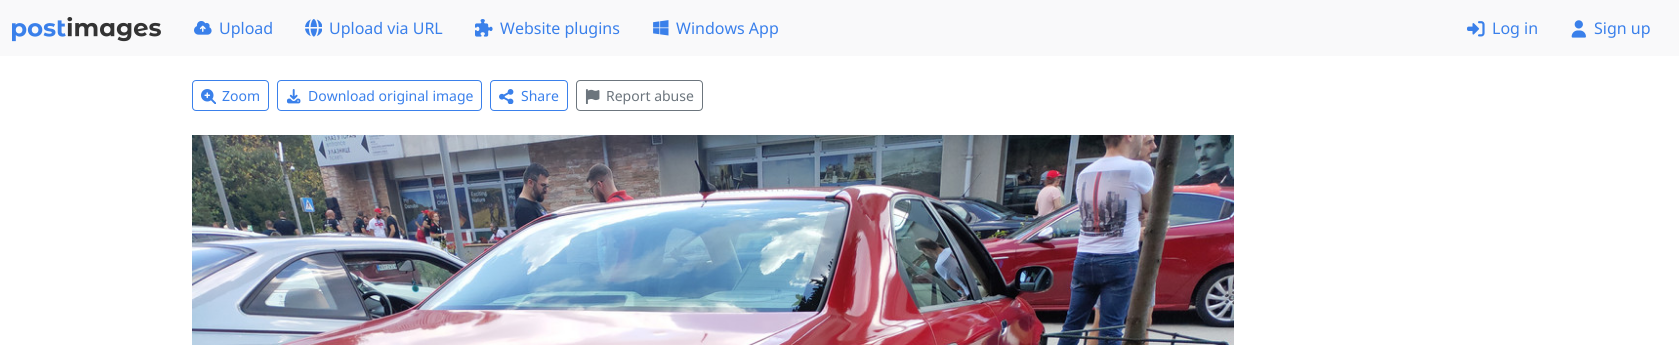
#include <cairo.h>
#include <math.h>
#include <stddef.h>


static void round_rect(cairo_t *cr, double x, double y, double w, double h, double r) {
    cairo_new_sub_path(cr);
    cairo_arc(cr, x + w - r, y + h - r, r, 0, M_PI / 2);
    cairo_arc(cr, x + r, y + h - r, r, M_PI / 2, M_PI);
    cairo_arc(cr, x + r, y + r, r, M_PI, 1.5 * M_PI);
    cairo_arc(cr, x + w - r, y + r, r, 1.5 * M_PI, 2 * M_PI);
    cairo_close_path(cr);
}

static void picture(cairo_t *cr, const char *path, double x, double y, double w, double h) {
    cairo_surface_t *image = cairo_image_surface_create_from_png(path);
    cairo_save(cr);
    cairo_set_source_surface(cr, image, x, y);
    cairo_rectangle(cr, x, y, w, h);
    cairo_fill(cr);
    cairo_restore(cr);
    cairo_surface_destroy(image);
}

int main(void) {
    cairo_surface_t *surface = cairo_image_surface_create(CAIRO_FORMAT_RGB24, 1679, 345);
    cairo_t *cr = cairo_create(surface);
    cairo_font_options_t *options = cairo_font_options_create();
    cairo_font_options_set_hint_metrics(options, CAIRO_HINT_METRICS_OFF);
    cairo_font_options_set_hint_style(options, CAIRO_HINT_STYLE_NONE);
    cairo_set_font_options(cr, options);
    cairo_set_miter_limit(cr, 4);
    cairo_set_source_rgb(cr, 1, 1, 1);
    cairo_paint(cr);
    cairo_set_source_rgb(cr, 0.973, 0.976, 0.98);
    cairo_rectangle(cr, 0, 0, 1679, 56);
    cairo_fill(cr);
    picture(cr, "img1.png", 12, 17, 149, 25);
    picture(cr, "img2.png", 194, 21, 18, 14);
    cairo_select_font_face(cr, "Noto Sans", CAIRO_FONT_SLANT_NORMAL, CAIRO_FONT_WEIGHT_NORMAL);
    cairo_set_font_size(cr, 16);
    cairo_set_source_rgb(cr, 0.227, 0.502, 0.918);
    cairo_move_to(cr, 219, 34);
    cairo_show_text(cr, "Upload");
    picture(cr, "img3.png", 305, 19, 17, 18);
    cairo_move_to(cr, 329, 34);
    cairo_show_text(cr, "Upload via URL");
    picture(cr, "img4.png", 475, 19, 18, 18);
    cairo_move_to(cr, 500, 34);
    cairo_show_text(cr, "Website plugins");
    picture(cr, "img5.png", 653, 20, 16, 16);
    cairo_move_to(cr, 676, 34);
    cairo_show_text(cr, "Windows App");
    picture(cr, "img6.png", 1467, 21, 18, 16);
    cairo_move_to(cr, 1492, 34);
    cairo_show_text(cr, "Log in");
    picture(cr, "img7.png", 1571, 20, 15, 18);
    cairo_move_to(cr, 1594, 34);
    cairo_show_text(cr, "Sign up");
    round_rect(cr, 192.5, 80.5, 76, 30, 3.5);
    cairo_set_line_width(cr, 1);
    cairo_stroke(cr);
    picture(cr, "img8.png", 201, 89, 15, 15);
    cairo_set_font_size(cr, 14);
    cairo_move_to(cr, 222, 101);
    cairo_show_text(cr, "Zoom");
    round_rect(cr, 277.5, 80.5, 204, 30, 3.5);
    cairo_stroke(cr);
    picture(cr, "img9.png", 286, 89, 15, 15);
    cairo_move_to(cr, 308, 101);
    cairo_show_text(cr, "Download original image");
    round_rect(cr, 490.5, 80.5, 77, 30, 3.5);
    cairo_stroke(cr);
    picture(cr, "img10.png", 499, 89, 15, 15);
    cairo_move_to(cr, 521, 101);
    cairo_show_text(cr, "Share");
    round_rect(cr, 576.5, 80.5, 126, 30, 3.5);
    cairo_set_source_rgb(cr, 0.424, 0.459, 0.49);
    cairo_stroke(cr);
    picture(cr, "img11.png", 585, 89, 15, 15);
    cairo_move_to(cr, 606, 101);
    cairo_show_text(cr, "Report abuse");
    picture(cr, "img12.png", 192, 135, 1042, 210);
    cairo_surface_write_to_png(surface, "page.png");
    cairo_font_options_destroy(options);
    cairo_destroy(cr);
    cairo_surface_destroy(surface);
    return 0;
}
